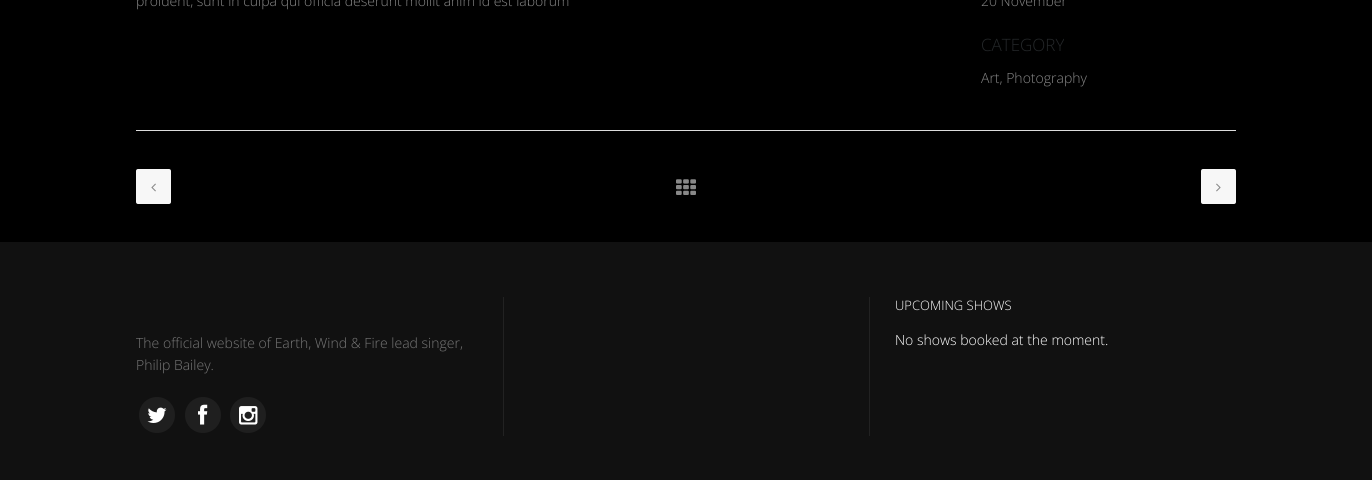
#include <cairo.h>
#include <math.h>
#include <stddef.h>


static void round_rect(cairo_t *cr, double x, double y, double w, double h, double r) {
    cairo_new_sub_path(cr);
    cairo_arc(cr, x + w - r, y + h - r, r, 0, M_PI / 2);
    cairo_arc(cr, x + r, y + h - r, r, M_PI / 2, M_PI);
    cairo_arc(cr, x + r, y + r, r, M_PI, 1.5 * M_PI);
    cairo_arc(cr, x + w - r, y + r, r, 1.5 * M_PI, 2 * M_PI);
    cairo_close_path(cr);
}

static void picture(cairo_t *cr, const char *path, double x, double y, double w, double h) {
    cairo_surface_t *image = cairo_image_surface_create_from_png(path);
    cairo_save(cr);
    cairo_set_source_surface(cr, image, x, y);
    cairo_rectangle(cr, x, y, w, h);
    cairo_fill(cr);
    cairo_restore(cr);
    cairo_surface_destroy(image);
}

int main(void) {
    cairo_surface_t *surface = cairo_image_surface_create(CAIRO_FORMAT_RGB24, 1372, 480);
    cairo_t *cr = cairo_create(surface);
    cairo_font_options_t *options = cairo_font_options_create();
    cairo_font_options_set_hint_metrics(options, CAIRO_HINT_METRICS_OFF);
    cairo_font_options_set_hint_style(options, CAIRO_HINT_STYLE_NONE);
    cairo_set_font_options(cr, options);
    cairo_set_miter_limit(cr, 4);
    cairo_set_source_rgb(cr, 0, 0, 0);
    cairo_paint(cr);
    cairo_select_font_face(cr, "Open Sans Light", CAIRO_FONT_SLANT_NORMAL, CAIRO_FONT_WEIGHT_NORMAL);
    cairo_set_font_size(cr, 14);
    cairo_set_source_rgb(cr, 0.533, 0.533, 0.533);
    cairo_move_to(cr, 136, 6);
    cairo_show_text(cr, "proident, sunt in culpa qui officia deserunt mollit anim id est laborum");
    cairo_move_to(cr, 981, 6);
    cairo_show_text(cr, "20 November");
    cairo_set_font_size(cr, 17);
    cairo_set_source_rgb(cr, 0.141, 0.153, 0.161);
    cairo_move_to(cr, 981, 51);
    cairo_show_text(cr, "CATEGORY");
    cairo_set_font_size(cr, 14);
    cairo_set_source_rgb(cr, 0.533, 0.533, 0.533);
    cairo_move_to(cr, 981, 83);
    cairo_show_text(cr, "Art, Photography");
    cairo_set_source_rgb(cr, 0.867, 0.867, 0.867);
    cairo_rectangle(cr, 136, 130, 1100, 1);
    cairo_fill(cr);
    cairo_set_source_rgb(cr, 0.965, 0.965, 0.965);
    round_rect(cr, 136, 169, 35, 35, 2);
    cairo_fill(cr);
    picture(cr, "img1.png", 151, 183, 5, 9);
    picture(cr, "img2.png", 676, 179, 20, 16);
    round_rect(cr, 1201, 169, 35, 35, 2);
    cairo_fill(cr);
    picture(cr, "img3.png", 1216, 183, 5, 9);
    cairo_set_source_rgb(cr, 0.067, 0.067, 0.067);
    cairo_rectangle(cr, 0, 242, 1372, 238);
    cairo_fill(cr);
    cairo_set_source_rgb(cr, 0.133, 0.133, 0.133);
    cairo_rectangle(cr, 503, 297, 1, 139);
    cairo_fill(cr);
    cairo_rectangle(cr, 869, 297, 1, 139);
    cairo_fill(cr);
    cairo_set_font_size(cr, 13);
    cairo_set_source_rgb(cr, 1, 1, 1);
    cairo_move_to(cr, 895, 310);
    cairo_show_text(cr, "UPCOMING SHOWS");
    cairo_set_font_size(cr, 14);
    cairo_move_to(cr, 895, 345);
    cairo_show_text(cr, "No shows booked at the moment.");
    cairo_set_source_rgb(cr, 0.467, 0.467, 0.467);
    cairo_move_to(cr, 136, 348);
    cairo_show_text(cr, "The official website of Earth, Wind & Fire lead singer,");
    cairo_move_to(cr, 136, 370);
    cairo_show_text(cr, "Philip Bailey.");
    cairo_set_source_rgb(cr, 0.122, 0.122, 0.122);
    cairo_new_path(cr);
    cairo_arc(cr, 157, 415, 18, 0, 2 * M_PI);
    cairo_fill(cr);
    picture(cr, "img4.png", 147, 407, 20, 16);
    cairo_arc(cr, 203, 415, 18, 0, 2 * M_PI);
    cairo_fill(cr);
    picture(cr, "img5.png", 198, 404, 10, 21);
    cairo_arc(cr, 248, 415, 18, 0, 2 * M_PI);
    cairo_fill(cr);
    picture(cr, "img6.png", 239, 406, 19, 19);
    cairo_surface_write_to_png(surface, "page.png");
    cairo_font_options_destroy(options);
    cairo_destroy(cr);
    cairo_surface_destroy(surface);
    return 0;
}
